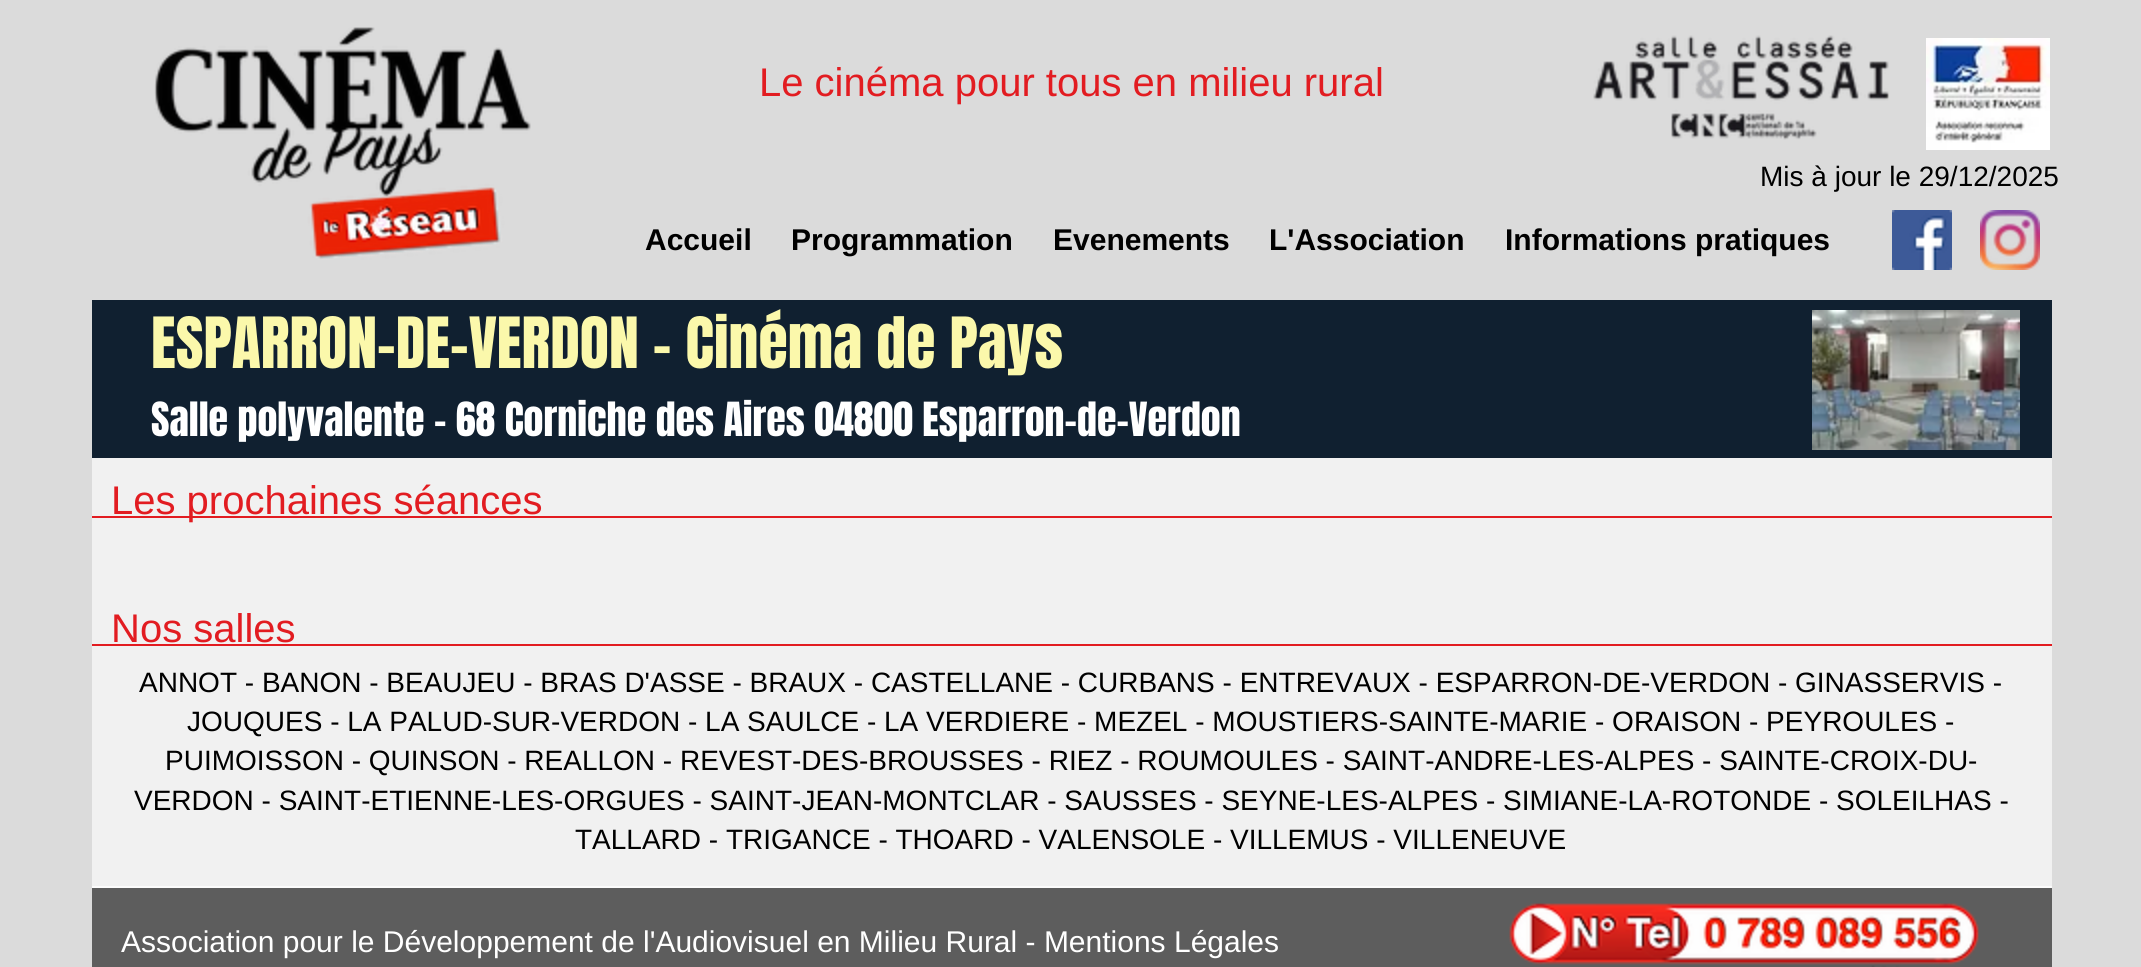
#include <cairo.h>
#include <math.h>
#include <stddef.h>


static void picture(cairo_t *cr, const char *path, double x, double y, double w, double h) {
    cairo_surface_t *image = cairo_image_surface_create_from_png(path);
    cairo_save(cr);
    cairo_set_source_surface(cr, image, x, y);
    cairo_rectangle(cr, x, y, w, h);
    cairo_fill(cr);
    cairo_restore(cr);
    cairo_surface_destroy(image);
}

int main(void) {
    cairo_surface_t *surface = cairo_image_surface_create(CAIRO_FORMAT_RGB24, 2141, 967);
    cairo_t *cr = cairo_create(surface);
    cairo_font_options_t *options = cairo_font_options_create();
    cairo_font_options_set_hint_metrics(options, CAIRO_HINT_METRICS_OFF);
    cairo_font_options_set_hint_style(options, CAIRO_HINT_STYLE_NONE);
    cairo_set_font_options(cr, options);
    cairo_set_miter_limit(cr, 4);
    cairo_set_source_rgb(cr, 0.859, 0.859, 0.859);
    cairo_paint(cr);
    picture(cr, "img1.png", 154, 27, 377, 233);
    cairo_select_font_face(cr, "Liberation Sans", CAIRO_FONT_SLANT_NORMAL, CAIRO_FONT_WEIGHT_NORMAL);
    cairo_set_font_size(cr, 40);
    cairo_set_source_rgb(cr, 0.886, 0.11, 0.129);
    cairo_move_to(cr, 759, 96);
    cairo_show_text(cr, "Le cinéma pour tous en milieu rural");
    picture(cr, "img2.png", 1593, 35, 296, 105);
    picture(cr, "img3.png", 1926, 38, 124, 112);
    cairo_set_font_size(cr, 28);
    cairo_set_source_rgb(cr, 0, 0, 0);
    cairo_move_to(cr, 1760, 186);
    cairo_show_text(cr, "Mis à jour le 29/12/2025");
    cairo_select_font_face(cr, "Liberation Sans", CAIRO_FONT_SLANT_NORMAL, CAIRO_FONT_WEIGHT_BOLD);
    cairo_set_font_size(cr, 30);
    cairo_move_to(cr, 645, 250);
    cairo_show_text(cr, "Accueil");
    cairo_move_to(cr, 791, 250);
    cairo_show_text(cr, "Programmation");
    cairo_move_to(cr, 1053, 250);
    cairo_show_text(cr, "Evenements");
    cairo_move_to(cr, 1269, 250);
    cairo_show_text(cr, "L'Association");
    cairo_move_to(cr, 1505, 250);
    cairo_show_text(cr, "Informations pratiques");
    picture(cr, "img4.png", 1892, 210, 60, 60);
    picture(cr, "img5.png", 1980, 210, 60, 60);
    cairo_set_source_rgb(cr, 0.063, 0.125, 0.188);
    cairo_rectangle(cr, 92, 300, 1960, 158);
    cairo_fill(cr);
    cairo_select_font_face(cr, "Anton", CAIRO_FONT_SLANT_NORMAL, CAIRO_FONT_WEIGHT_NORMAL);
    cairo_set_font_size(cr, 60);
    cairo_set_source_rgb(cr, 0.984, 0.969, 0.671);
    cairo_move_to(cr, 151, 368);
    cairo_show_text(cr, "ESPARRON-DE-VERDON - Cinéma de Pays");
    picture(cr, "img6.png", 1812, 310, 208, 140);
    cairo_set_font_size(cr, 40);
    cairo_set_source_rgb(cr, 1, 1, 1);
    cairo_move_to(cr, 151, 436);
    cairo_show_text(cr, "Salle polyvalente - 68 Corniche des Aires 04800 Esparron-de-Verdon");
    cairo_set_source_rgb(cr, 0.945, 0.945, 0.945);
    cairo_rectangle(cr, 92, 458, 1960, 428);
    cairo_fill(cr);
    cairo_set_source_rgb(cr, 0.886, 0.11, 0.129);
    cairo_rectangle(cr, 92, 516, 1960, 2);
    cairo_fill(cr);
    cairo_select_font_face(cr, "Liberation Sans", CAIRO_FONT_SLANT_NORMAL, CAIRO_FONT_WEIGHT_NORMAL);
    cairo_move_to(cr, 111, 514);
    cairo_show_text(cr, "Les prochaines séances");
    cairo_move_to(cr, 111, 642);
    cairo_show_text(cr, "Nos salles");
    cairo_rectangle(cr, 92, 644, 1960, 2);
    cairo_fill(cr);
    cairo_set_font_size(cr, 28);
    cairo_set_source_rgb(cr, 0, 0, 0);
    cairo_move_to(cr, 139, 692);
    cairo_show_text(cr, "ANNOT - BANON - BEAUJEU - BRAS D'ASSE - BRAUX - CASTELLANE - CURBANS - ENTREVAUX - ESPARRON-DE-VERDON - GINASSERVIS -");
    cairo_move_to(cr, 187, 731);
    cairo_show_text(cr, "JOUQUES - LA PALUD-SUR-VERDON - LA SAULCE - LA VERDIERE - MEZEL - MOUSTIERS-SAINTE-MARIE - ORAISON - PEYROULES -");
    cairo_move_to(cr, 165, 770);
    cairo_show_text(cr, "PUIMOISSON - QUINSON - REALLON - REVEST-DES-BROUSSES - RIEZ - ROUMOULES - SAINT-ANDRE-LES-ALPES - SAINTE-CROIX-DU-");
    cairo_move_to(cr, 134, 810);
    cairo_show_text(cr, "VERDON - SAINT-ETIENNE-LES-ORGUES - SAINT-JEAN-MONTCLAR - SAUSSES - SEYNE-LES-ALPES - SIMIANE-LA-ROTONDE - SOLEILHAS -");
    cairo_move_to(cr, 575, 849);
    cairo_show_text(cr, "TALLARD - TRIGANCE - THOARD - VALENSOLE - VILLEMUS - VILLENEUVE");
    cairo_set_source_rgb(cr, 0.988, 0.988, 0.988);
    cairo_rectangle(cr, 92, 886, 1960, 2);
    cairo_fill(cr);
    cairo_set_source_rgb(cr, 0.365, 0.365, 0.365);
    cairo_rectangle(cr, 92, 888, 1960, 79);
    cairo_fill(cr);
    cairo_set_font_size(cr, 30);
    cairo_set_source_rgb(cr, 1, 1, 1);
    cairo_move_to(cr, 121, 952);
    cairo_show_text(cr, "Association pour le Développement de l'Audiovisuel en Milieu Rural - Mentions Légales");
    picture(cr, "img7.png", 1509, 903, 470, 64);
    cairo_surface_write_to_png(surface, "page.png");
    cairo_font_options_destroy(options);
    cairo_destroy(cr);
    cairo_surface_destroy(surface);
    return 0;
}
